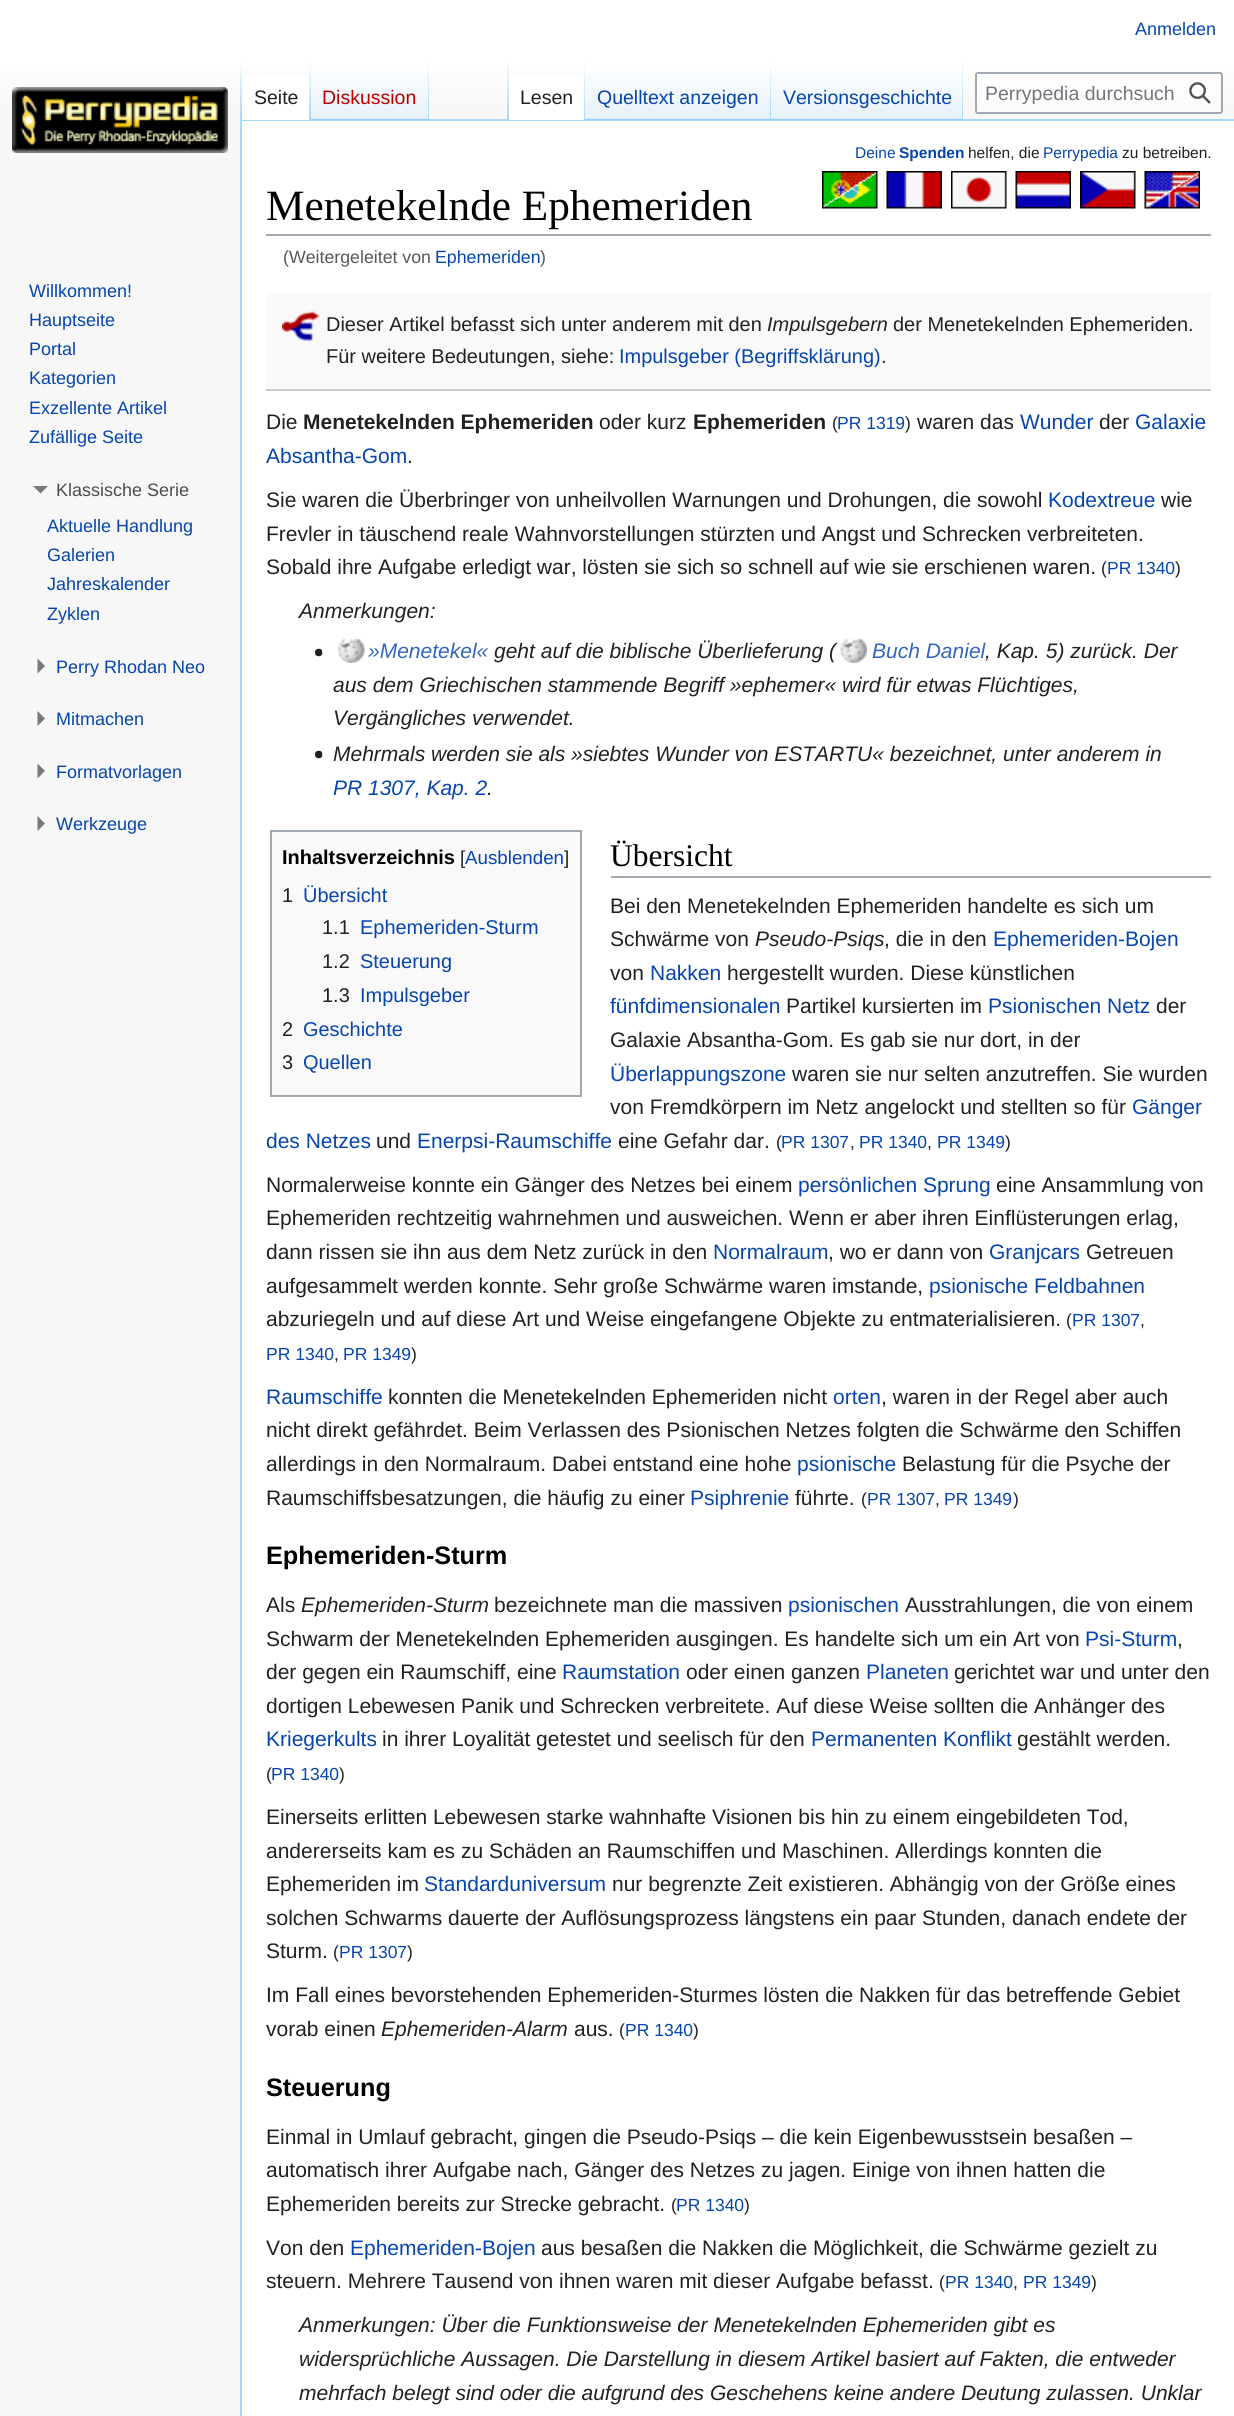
#include <cairo.h>
#include <math.h>
#include <stddef.h>


static void round_rect(cairo_t *cr, double x, double y, double w, double h, double r) {
    cairo_new_sub_path(cr);
    cairo_arc(cr, x + w - r, y + h - r, r, 0, M_PI / 2);
    cairo_arc(cr, x + r, y + h - r, r, M_PI / 2, M_PI);
    cairo_arc(cr, x + r, y + r, r, M_PI, 1.5 * M_PI);
    cairo_arc(cr, x + w - r, y + r, r, 1.5 * M_PI, 2 * M_PI);
    cairo_close_path(cr);
}

static void picture(cairo_t *cr, const char *path, double x, double y, double w, double h) {
    cairo_surface_t *image = cairo_image_surface_create_from_png(path);
    cairo_save(cr);
    cairo_set_source_surface(cr, image, x, y);
    cairo_rectangle(cr, x, y, w, h);
    cairo_fill(cr);
    cairo_restore(cr);
    cairo_surface_destroy(image);
}

int main(void) {
    cairo_surface_t *surface = cairo_image_surface_create(CAIRO_FORMAT_RGB24, 1234, 2416);
    cairo_t *cr = cairo_create(surface);
    cairo_font_options_t *options = cairo_font_options_create();
    cairo_font_options_set_hint_metrics(options, CAIRO_HINT_METRICS_OFF);
    cairo_font_options_set_hint_style(options, CAIRO_HINT_STYLE_NONE);
    cairo_set_font_options(cr, options);
    cairo_set_miter_limit(cr, 4);
    cairo_pattern_t *gradient;
    cairo_set_source_rgb(cr, 0.965, 0.965, 0.965);
    cairo_paint(cr);
    gradient = cairo_pattern_create_linear(617, 0, 617, 120);
    cairo_pattern_add_color_stop_rgba(gradient, 0.5, 1, 1, 1, 1);
    cairo_pattern_add_color_stop_rgba(gradient, 1, 0.965, 0.965, 0.965, 1);
    cairo_set_source(cr, gradient);
    cairo_pattern_destroy(gradient);
    cairo_rectangle(cr, 0, 0, 1234, 103);
    cairo_fill(cr);
    cairo_select_font_face(cr, "Liberation Sans", CAIRO_FONT_SLANT_NORMAL, CAIRO_FONT_WEIGHT_NORMAL);
    cairo_set_font_size(cr, 18);
    cairo_set_source_rgb(cr, 0.024, 0.271, 0.678);
    cairo_move_to(cr, 1135, 35);
    cairo_show_text(cr, "Anmelden");
    cairo_set_source_rgb(cr, 0.655, 0.843, 0.976);
    cairo_rectangle(cr, 240, 119, 994, 2);
    cairo_fill(cr);
    cairo_rectangle(cr, 240, 119, 2, 2297);
    cairo_fill(cr);
    gradient = cairo_pattern_create_linear(241, 60, 241, 120);
    cairo_pattern_add_color_stop_rgba(gradient, 0, 0.655, 0.843, 0.976, 0);
    cairo_pattern_add_color_stop_rgba(gradient, 1, 0.655, 0.843, 0.976, 1);
    cairo_set_source(cr, gradient);
    cairo_pattern_destroy(gradient);
    cairo_rectangle(cr, 240, 60, 2, 60);
    cairo_fill(cr);
    cairo_set_source_rgb(cr, 1, 1, 1);
    cairo_rectangle(cr, 242, 77, 67, 43);
    cairo_fill(cr);
    gradient = cairo_pattern_create_linear(310, 60, 310, 120);
    cairo_pattern_add_color_stop_rgba(gradient, 0, 1, 1, 1, 1);
    cairo_pattern_add_color_stop_rgba(gradient, 1, 0.655, 0.843, 0.976, 1);
    cairo_set_source(cr, gradient);
    cairo_pattern_destroy(gradient);
    cairo_rectangle(cr, 309, 60, 2, 60);
    cairo_fill(cr);
    cairo_set_font_size(cr, 19.5);
    cairo_set_source_rgb(cr, 0.125, 0.129, 0.133);
    cairo_move_to(cr, 254, 104);
    cairo_show_text(cr, "Seite");
    gradient = cairo_pattern_create_linear(370, 120, 370, 60);
    cairo_pattern_add_color_stop_rgba(gradient, 0, 0.467, 0.757, 0.965, 1);
    cairo_pattern_add_color_stop_rgba(gradient, 0.03, 0.91, 0.949, 0.973, 1);
    cairo_pattern_add_color_stop_rgba(gradient, 1, 1, 1, 1, 1);
    cairo_set_source(cr, gradient);
    cairo_pattern_destroy(gradient);
    cairo_rectangle(cr, 311, 69, 118, 51);
    cairo_fill(cr);
    gradient = cairo_pattern_create_linear(428, 60, 428, 120);
    cairo_pattern_add_color_stop_rgba(gradient, 0, 0.655, 0.843, 0.976, 0);
    cairo_pattern_add_color_stop_rgba(gradient, 1, 0.655, 0.843, 0.976, 1);
    cairo_set_source(cr, gradient);
    cairo_pattern_destroy(gradient);
    cairo_rectangle(cr, 428, 60, 1, 60);
    cairo_fill(cr);
    cairo_set_source_rgb(cr, 0.729, 0, 0);
    cairo_move_to(cr, 322, 104);
    cairo_show_text(cr, "Diskussion");
    gradient = cairo_pattern_create_linear(508, 60, 508, 120);
    cairo_pattern_add_color_stop_rgba(gradient, 0, 0.655, 0.843, 0.976, 0);
    cairo_pattern_add_color_stop_rgba(gradient, 1, 0.655, 0.843, 0.976, 1);
    cairo_set_source(cr, gradient);
    cairo_pattern_destroy(gradient);
    cairo_rectangle(cr, 507, 60, 2, 60);
    cairo_fill(cr);
    cairo_set_source_rgb(cr, 1, 1, 1);
    cairo_rectangle(cr, 509, 77, 75, 43);
    cairo_fill(cr);
    gradient = cairo_pattern_create_linear(584, 60, 584, 120);
    cairo_pattern_add_color_stop_rgba(gradient, 0, 1, 1, 1, 1);
    cairo_pattern_add_color_stop_rgba(gradient, 1, 0.655, 0.843, 0.976, 1);
    cairo_set_source(cr, gradient);
    cairo_pattern_destroy(gradient);
    cairo_rectangle(cr, 584, 60, 1, 60);
    cairo_fill(cr);
    cairo_set_source_rgb(cr, 0.125, 0.129, 0.133);
    cairo_move_to(cr, 520, 104);
    cairo_show_text(cr, "Lesen");
    gradient = cairo_pattern_create_linear(678, 120, 678, 60);
    cairo_pattern_add_color_stop_rgba(gradient, 0, 0.467, 0.757, 0.965, 1);
    cairo_pattern_add_color_stop_rgba(gradient, 0.03, 0.91, 0.949, 0.973, 1);
    cairo_pattern_add_color_stop_rgba(gradient, 1, 1, 1, 1, 1);
    cairo_set_source(cr, gradient);
    cairo_pattern_destroy(gradient);
    cairo_rectangle(cr, 585, 69, 186, 51);
    cairo_fill(cr);
    gradient = cairo_pattern_create_linear(770, 60, 770, 120);
    cairo_pattern_add_color_stop_rgba(gradient, 0, 0.655, 0.843, 0.976, 0);
    cairo_pattern_add_color_stop_rgba(gradient, 1, 0.655, 0.843, 0.976, 1);
    cairo_set_source(cr, gradient);
    cairo_pattern_destroy(gradient);
    cairo_rectangle(cr, 770, 60, 1, 60);
    cairo_fill(cr);
    cairo_set_source_rgb(cr, 0.024, 0.271, 0.678);
    cairo_move_to(cr, 597, 104);
    cairo_show_text(cr, "Quelltext anzeigen");
    gradient = cairo_pattern_create_linear(867, 120, 867, 60);
    cairo_pattern_add_color_stop_rgba(gradient, 0, 0.467, 0.757, 0.965, 1);
    cairo_pattern_add_color_stop_rgba(gradient, 0.03, 0.91, 0.949, 0.973, 1);
    cairo_pattern_add_color_stop_rgba(gradient, 1, 1, 1, 1, 1);
    cairo_set_source(cr, gradient);
    cairo_pattern_destroy(gradient);
    cairo_rectangle(cr, 771, 69, 192, 51);
    cairo_fill(cr);
    gradient = cairo_pattern_create_linear(962, 60, 962, 120);
    cairo_pattern_add_color_stop_rgba(gradient, 0, 0.655, 0.843, 0.976, 0);
    cairo_pattern_add_color_stop_rgba(gradient, 1, 0.655, 0.843, 0.976, 1);
    cairo_set_source(cr, gradient);
    cairo_pattern_destroy(gradient);
    cairo_rectangle(cr, 962, 60, 1, 60);
    cairo_fill(cr);
    cairo_set_source_rgb(cr, 0.024, 0.271, 0.678);
    cairo_move_to(cr, 783, 104);
    cairo_show_text(cr, "Versionsgeschichte");
    cairo_set_source_rgba(cr, 1, 1, 1, 0.5);
    round_rect(cr, 976, 73, 246, 40, 2);
    cairo_fill_preserve(cr);
    cairo_set_source_rgb(cr, 0.635, 0.663, 0.694);
    cairo_stroke(cr);
    cairo_set_source_rgb(cr, 0.447, 0.467, 0.49);
    cairo_move_to(cr, 985, 100);
    cairo_show_text(cr, "Perrypedia durchsuch");
    picture(cr, "img1.png", 1189, 82, 22, 22);
    picture(cr, "img2.png", 12, 87, 216, 66);
    cairo_set_font_size(cr, 18);
    cairo_set_source_rgb(cr, 0.024, 0.271, 0.678);
    cairo_move_to(cr, 29, 297);
    cairo_show_text(cr, "Willkommen!");
    cairo_move_to(cr, 29, 326);
    cairo_show_text(cr, "Hauptseite");
    cairo_move_to(cr, 29, 355);
    cairo_show_text(cr, "Portal");
    cairo_move_to(cr, 29, 384);
    cairo_show_text(cr, "Kategorien");
    cairo_move_to(cr, 29, 414);
    cairo_show_text(cr, "Exzellente Artikel");
    cairo_move_to(cr, 29, 443);
    cairo_show_text(cr, "Zufällige Seite");
    cairo_set_source_rgb(cr, 0.475, 0.475, 0.475);
    cairo_new_path(cr);
    cairo_move_to(cr, 48, 486);
    cairo_line_to(cr, 40.5, 493.5);
    cairo_line_to(cr, 33, 486);
    cairo_close_path(cr);
    cairo_fill(cr);
    cairo_set_source_rgb(cr, 0.302, 0.302, 0.302);
    cairo_move_to(cr, 56, 496);
    cairo_show_text(cr, "Klassische Serie");
    cairo_set_source_rgb(cr, 0.024, 0.271, 0.678);
    cairo_move_to(cr, 47, 532);
    cairo_show_text(cr, "Aktuelle Handlung");
    cairo_move_to(cr, 47, 561);
    cairo_show_text(cr, "Galerien");
    cairo_move_to(cr, 47, 590);
    cairo_show_text(cr, "Jahreskalender");
    cairo_move_to(cr, 47, 620);
    cairo_show_text(cr, "Zyklen");
    cairo_set_source_rgb(cr, 0.475, 0.475, 0.475);
    cairo_new_path(cr);
    cairo_move_to(cr, 37.5, 658.5);
    cairo_line_to(cr, 45, 666);
    cairo_line_to(cr, 37.5, 673.5);
    cairo_close_path(cr);
    cairo_fill(cr);
    cairo_set_source_rgb(cr, 0.024, 0.271, 0.678);
    cairo_move_to(cr, 56, 673);
    cairo_show_text(cr, "Perry Rhodan Neo");
    cairo_set_source_rgb(cr, 0.475, 0.475, 0.475);
    cairo_new_path(cr);
    cairo_move_to(cr, 37.5, 711);
    cairo_line_to(cr, 45, 718.5);
    cairo_line_to(cr, 37.5, 726);
    cairo_close_path(cr);
    cairo_fill(cr);
    cairo_set_source_rgb(cr, 0.024, 0.271, 0.678);
    cairo_move_to(cr, 56, 725);
    cairo_show_text(cr, "Mitmachen");
    cairo_set_source_rgb(cr, 0.475, 0.475, 0.475);
    cairo_new_path(cr);
    cairo_move_to(cr, 37.5, 763.5);
    cairo_line_to(cr, 45, 771);
    cairo_line_to(cr, 37.5, 778.5);
    cairo_close_path(cr);
    cairo_fill(cr);
    cairo_set_source_rgb(cr, 0.024, 0.271, 0.678);
    cairo_move_to(cr, 56, 778);
    cairo_show_text(cr, "Formatvorlagen");
    cairo_set_source_rgb(cr, 0.475, 0.475, 0.475);
    cairo_new_path(cr);
    cairo_move_to(cr, 37.5, 816);
    cairo_line_to(cr, 45, 823.5);
    cairo_line_to(cr, 37.5, 831);
    cairo_close_path(cr);
    cairo_fill(cr);
    cairo_set_source_rgb(cr, 0.024, 0.271, 0.678);
    cairo_move_to(cr, 56, 830);
    cairo_show_text(cr, "Werkzeuge");
    cairo_set_source_rgb(cr, 1, 1, 1);
    cairo_rectangle(cr, 242, 121, 992, 2295);
    cairo_fill(cr);
    cairo_set_font_size(cr, 15.5);
    cairo_set_source_rgb(cr, 0.024, 0.271, 0.678);
    cairo_move_to(cr, 855, 158);
    cairo_show_text(cr, "Deine");
    cairo_select_font_face(cr, "Liberation Sans", CAIRO_FONT_SLANT_NORMAL, CAIRO_FONT_WEIGHT_BOLD);
    cairo_move_to(cr, 899, 158);
    cairo_show_text(cr, "Spenden");
    cairo_select_font_face(cr, "Liberation Sans", CAIRO_FONT_SLANT_NORMAL, CAIRO_FONT_WEIGHT_NORMAL);
    cairo_set_source_rgb(cr, 0.125, 0.129, 0.133);
    cairo_move_to(cr, 968, 158);
    cairo_show_text(cr, "helfen, die");
    cairo_set_source_rgb(cr, 0.024, 0.271, 0.678);
    cairo_move_to(cr, 1043, 158);
    cairo_show_text(cr, "Perrypedia");
    cairo_set_source_rgb(cr, 0.125, 0.129, 0.133);
    cairo_move_to(cr, 1122, 158);
    cairo_show_text(cr, "zu betreiben.");
    cairo_set_source_rgb(cr, 0.635, 0.663, 0.694);
    cairo_rectangle(cr, 266, 234, 945, 2);
    cairo_fill(cr);
    cairo_select_font_face(cr, "Liberation Serif", CAIRO_FONT_SLANT_NORMAL, CAIRO_FONT_WEIGHT_NORMAL);
    cairo_set_font_size(cr, 43.25);
    cairo_set_source_rgb(cr, 0, 0, 0);
    cairo_move_to(cr, 266, 220);
    cairo_show_text(cr, "Menetekelnde Ephemeriden");
    cairo_select_font_face(cr, "Liberation Sans", CAIRO_FONT_SLANT_NORMAL, CAIRO_FONT_WEIGHT_NORMAL);
    cairo_set_font_size(cr, 17.75);
    cairo_set_source_rgb(cr, 0.329, 0.349, 0.365);
    cairo_move_to(cr, 283, 263);
    cairo_show_text(cr, "(Weitergeleitet von");
    cairo_set_source_rgb(cr, 0.024, 0.271, 0.678);
    cairo_move_to(cr, 435, 263);
    cairo_show_text(cr, "Ephemeriden");
    cairo_set_source_rgb(cr, 0.329, 0.349, 0.365);
    cairo_move_to(cr, 540, 263);
    cairo_show_text(cr, ")");
    picture(cr, "img3.png", 822, 171, 56, 38);
    picture(cr, "img4.png", 886, 171, 56, 38);
    picture(cr, "img5.png", 951, 171, 56, 38);
    picture(cr, "img6.png", 1015, 171, 56, 38);
    picture(cr, "img7.png", 1080, 171, 56, 38);
    picture(cr, "img8.png", 1144, 171, 56, 38);
    cairo_set_source_rgb(cr, 0.976, 0.976, 0.976);
    cairo_rectangle(cr, 266, 293, 945, 96);
    cairo_fill(cr);
    cairo_set_source_rgb(cr, 0.8, 0.8, 0.8);
    cairo_rectangle(cr, 266, 389, 945, 2);
    cairo_fill(cr);
    picture(cr, "img9.png", 282, 310, 38, 31);
    cairo_set_font_size(cr, 19.95);
    cairo_set_source_rgb(cr, 0.125, 0.129, 0.133);
    cairo_move_to(cr, 326, 331);
    cairo_show_text(cr, "Dieser Artikel befasst sich unter anderem mit den");
    cairo_select_font_face(cr, "Liberation Sans", CAIRO_FONT_SLANT_ITALIC, CAIRO_FONT_WEIGHT_NORMAL);
    cairo_move_to(cr, 767, 331);
    cairo_show_text(cr, "Impulsgebern");
    cairo_select_font_face(cr, "Liberation Sans", CAIRO_FONT_SLANT_NORMAL, CAIRO_FONT_WEIGHT_NORMAL);
    cairo_move_to(cr, 893, 331);
    cairo_show_text(cr, "der Menetekelnden Ephemeriden.");
    cairo_move_to(cr, 326, 363);
    cairo_show_text(cr, "Für weitere Bedeutungen, siehe:");
    cairo_set_source_rgb(cr, 0.024, 0.271, 0.678);
    cairo_move_to(cr, 619, 363);
    cairo_show_text(cr, "Impulsgeber (Begriffsklärung)");
    cairo_set_source_rgb(cr, 0.125, 0.129, 0.133);
    cairo_move_to(cr, 881, 363);
    cairo_show_text(cr, ".");
    cairo_set_font_size(cr, 21);
    cairo_move_to(cr, 266, 429);
    cairo_show_text(cr, "Die");
    cairo_select_font_face(cr, "Liberation Sans", CAIRO_FONT_SLANT_NORMAL, CAIRO_FONT_WEIGHT_BOLD);
    cairo_move_to(cr, 303, 429);
    cairo_show_text(cr, "Menetekelnden Ephemeriden");
    cairo_select_font_face(cr, "Liberation Sans", CAIRO_FONT_SLANT_NORMAL, CAIRO_FONT_WEIGHT_NORMAL);
    cairo_move_to(cr, 599, 429);
    cairo_show_text(cr, "oder kurz");
    cairo_select_font_face(cr, "Liberation Sans", CAIRO_FONT_SLANT_NORMAL, CAIRO_FONT_WEIGHT_BOLD);
    cairo_move_to(cr, 693, 429);
    cairo_show_text(cr, "Ephemeriden");
    cairo_select_font_face(cr, "Liberation Sans", CAIRO_FONT_SLANT_NORMAL, CAIRO_FONT_WEIGHT_NORMAL);
    cairo_set_font_size(cr, 17.5);
    cairo_move_to(cr, 832, 429);
    cairo_show_text(cr, "(");
    cairo_set_source_rgb(cr, 0.024, 0.271, 0.678);
    cairo_move_to(cr, 837, 429);
    cairo_show_text(cr, "PR 1319");
    cairo_set_source_rgb(cr, 0.125, 0.129, 0.133);
    cairo_move_to(cr, 905, 429);
    cairo_show_text(cr, ")");
    cairo_set_font_size(cr, 21);
    cairo_move_to(cr, 917, 429);
    cairo_show_text(cr, "waren das");
    cairo_set_source_rgb(cr, 0.024, 0.271, 0.678);
    cairo_move_to(cr, 1020, 429);
    cairo_show_text(cr, "Wunder");
    cairo_set_source_rgb(cr, 0.125, 0.129, 0.133);
    cairo_move_to(cr, 1099, 429);
    cairo_show_text(cr, "der");
    cairo_set_source_rgb(cr, 0.024, 0.271, 0.678);
    cairo_move_to(cr, 1135, 429);
    cairo_show_text(cr, "Galaxie");
    cairo_move_to(cr, 266, 463);
    cairo_show_text(cr, "Absantha-Gom");
    cairo_set_source_rgb(cr, 0.125, 0.129, 0.133);
    cairo_move_to(cr, 407, 463);
    cairo_show_text(cr, ".");
    cairo_move_to(cr, 266, 507);
    cairo_show_text(cr, "Sie waren die Überbringer von unheilvollen Warnungen und Drohungen, die sowohl");
    cairo_set_source_rgb(cr, 0.024, 0.271, 0.678);
    cairo_move_to(cr, 1048, 507);
    cairo_show_text(cr, "Kodextreue");
    cairo_set_source_rgb(cr, 0.125, 0.129, 0.133);
    cairo_move_to(cr, 1161, 507);
    cairo_show_text(cr, "wie");
    cairo_move_to(cr, 266, 541);
    cairo_show_text(cr, "Frevler in täuschend reale Wahnvorstellungen stürzten und Angst und Schrecken verbreiteten.");
    cairo_move_to(cr, 266, 574);
    cairo_show_text(cr, "Sobald ihre Aufgabe erledigt war, lösten sie sich so schnell auf wie sie erschienen waren.");
    cairo_set_font_size(cr, 17.5);
    cairo_move_to(cr, 1101, 574);
    cairo_show_text(cr, "(");
    cairo_set_source_rgb(cr, 0.024, 0.271, 0.678);
    cairo_move_to(cr, 1107, 574);
    cairo_show_text(cr, "PR 1340");
    cairo_set_source_rgb(cr, 0.125, 0.129, 0.133);
    cairo_move_to(cr, 1175, 574);
    cairo_show_text(cr, ")");
    cairo_select_font_face(cr, "Liberation Sans", CAIRO_FONT_SLANT_ITALIC, CAIRO_FONT_WEIGHT_NORMAL);
    cairo_set_font_size(cr, 21);
    cairo_move_to(cr, 299, 618);
    cairo_show_text(cr, "Anmerkungen:");
    picture(cr, "img10.png", 315, 648, 8, 9);
    picture(cr, "img11.png", 337, 638, 28, 25);
    cairo_set_source_rgb(cr, 0.2, 0.4, 0.733);
    cairo_move_to(cr, 368, 658);
    cairo_show_text(cr, "»Menetekel«");
    cairo_set_source_rgb(cr, 0.125, 0.129, 0.133);
    cairo_move_to(cr, 494, 658);
    cairo_show_text(cr, "geht auf die biblische Überlieferung (");
    picture(cr, "img12.png", 840, 638, 27, 25);
    cairo_set_source_rgb(cr, 0.2, 0.4, 0.733);
    cairo_move_to(cr, 872, 658);
    cairo_show_text(cr, "Buch Daniel");
    cairo_set_source_rgb(cr, 0.125, 0.129, 0.133);
    cairo_move_to(cr, 985, 658);
    cairo_show_text(cr, ", Kap. 5) zurück. Der");
    cairo_move_to(cr, 333, 692);
    cairo_show_text(cr, "aus dem Griechischen stammende Begriff »ephemer« wird für etwas Flüchtiges,");
    cairo_move_to(cr, 333, 725);
    cairo_show_text(cr, "Vergängliches verwendet.");
    picture(cr, "img10.png", 315, 750, 8, 9);
    cairo_move_to(cr, 333, 761);
    cairo_show_text(cr, "Mehrmals werden sie als »siebtes Wunder von ESTARTU« bezeichnet, unter anderem in");
    cairo_set_source_rgb(cr, 0.024, 0.271, 0.678);
    cairo_move_to(cr, 333, 795);
    cairo_show_text(cr, "PR 1307, Kap. 2");
    cairo_set_source_rgb(cr, 0.125, 0.129, 0.133);
    cairo_move_to(cr, 487, 795);
    cairo_show_text(cr, ".");
    cairo_set_source_rgb(cr, 0.973, 0.976, 0.98);
    cairo_rectangle(cr, 271, 831, 310, 265);
    cairo_fill_preserve(cr);
    cairo_set_source_rgb(cr, 0.635, 0.663, 0.694);
    cairo_stroke(cr);
    cairo_select_font_face(cr, "Liberation Sans", CAIRO_FONT_SLANT_NORMAL, CAIRO_FONT_WEIGHT_BOLD);
    cairo_set_font_size(cr, 19.95);
    cairo_set_source_rgb(cr, 0, 0, 0);
    cairo_move_to(cr, 282, 864);
    cairo_show_text(cr, "Inhaltsverzeichnis");
    cairo_select_font_face(cr, "Liberation Sans", CAIRO_FONT_SLANT_NORMAL, CAIRO_FONT_WEIGHT_NORMAL);
    cairo_set_font_size(cr, 18.75);
    cairo_set_source_rgb(cr, 0.125, 0.129, 0.133);
    cairo_move_to(cr, 460, 864);
    cairo_show_text(cr, "[");
    cairo_set_source_rgb(cr, 0.024, 0.271, 0.678);
    cairo_move_to(cr, 465, 864);
    cairo_show_text(cr, "Ausblenden");
    cairo_set_source_rgb(cr, 0.125, 0.129, 0.133);
    cairo_move_to(cr, 564, 864);
    cairo_show_text(cr, "]");
    cairo_set_font_size(cr, 19.95);
    cairo_move_to(cr, 282, 902);
    cairo_show_text(cr, "1");
    cairo_set_source_rgb(cr, 0.024, 0.271, 0.678);
    cairo_move_to(cr, 303, 902);
    cairo_show_text(cr, "Übersicht");
    cairo_set_source_rgb(cr, 0.125, 0.129, 0.133);
    cairo_move_to(cr, 322, 934);
    cairo_show_text(cr, "1.1");
    cairo_set_source_rgb(cr, 0.024, 0.271, 0.678);
    cairo_move_to(cr, 360, 934);
    cairo_show_text(cr, "Ephemeriden-Sturm");
    cairo_set_source_rgb(cr, 0.125, 0.129, 0.133);
    cairo_move_to(cr, 322, 968);
    cairo_show_text(cr, "1.2");
    cairo_set_source_rgb(cr, 0.024, 0.271, 0.678);
    cairo_move_to(cr, 360, 968);
    cairo_show_text(cr, "Steuerung");
    cairo_set_source_rgb(cr, 0.125, 0.129, 0.133);
    cairo_move_to(cr, 322, 1002);
    cairo_show_text(cr, "1.3");
    cairo_set_source_rgb(cr, 0.024, 0.271, 0.678);
    cairo_move_to(cr, 360, 1002);
    cairo_show_text(cr, "Impulsgeber");
    cairo_set_source_rgb(cr, 0.125, 0.129, 0.133);
    cairo_move_to(cr, 282, 1036);
    cairo_show_text(cr, "2");
    cairo_set_source_rgb(cr, 0.024, 0.271, 0.678);
    cairo_move_to(cr, 303, 1036);
    cairo_show_text(cr, "Geschichte");
    cairo_set_source_rgb(cr, 0.125, 0.129, 0.133);
    cairo_move_to(cr, 282, 1069);
    cairo_show_text(cr, "3");
    cairo_set_source_rgb(cr, 0.024, 0.271, 0.678);
    cairo_move_to(cr, 303, 1069);
    cairo_show_text(cr, "Quellen");
    cairo_set_source_rgb(cr, 0.635, 0.663, 0.694);
    cairo_rectangle(cr, 611, 876, 600, 2);
    cairo_fill(cr);
    cairo_select_font_face(cr, "Liberation Serif", CAIRO_FONT_SLANT_NORMAL, CAIRO_FONT_WEIGHT_NORMAL);
    cairo_set_font_size(cr, 31.5);
    cairo_set_source_rgb(cr, 0, 0, 0);
    cairo_move_to(cr, 610, 866);
    cairo_show_text(cr, "Übersicht");
    cairo_select_font_face(cr, "Liberation Sans", CAIRO_FONT_SLANT_NORMAL, CAIRO_FONT_WEIGHT_NORMAL);
    cairo_set_font_size(cr, 21);
    cairo_set_source_rgb(cr, 0.125, 0.129, 0.133);
    cairo_move_to(cr, 610, 913);
    cairo_show_text(cr, "Bei den Menetekelnden Ephemeriden handelte es sich um");
    cairo_move_to(cr, 610, 946);
    cairo_show_text(cr, "Schwärme von");
    cairo_select_font_face(cr, "Liberation Sans", CAIRO_FONT_SLANT_ITALIC, CAIRO_FONT_WEIGHT_NORMAL);
    cairo_move_to(cr, 755, 946);
    cairo_show_text(cr, "Pseudo-Psiqs");
    cairo_select_font_face(cr, "Liberation Sans", CAIRO_FONT_SLANT_NORMAL, CAIRO_FONT_WEIGHT_NORMAL);
    cairo_move_to(cr, 884, 946);
    cairo_show_text(cr, ", die in den");
    cairo_set_source_rgb(cr, 0.024, 0.271, 0.678);
    cairo_move_to(cr, 993, 946);
    cairo_show_text(cr, "Ephemeriden-Bojen");
    cairo_set_source_rgb(cr, 0.125, 0.129, 0.133);
    cairo_move_to(cr, 610, 980);
    cairo_show_text(cr, "von");
    cairo_set_source_rgb(cr, 0.024, 0.271, 0.678);
    cairo_move_to(cr, 650, 980);
    cairo_show_text(cr, "Nakken");
    cairo_set_source_rgb(cr, 0.125, 0.129, 0.133);
    cairo_move_to(cr, 727, 980);
    cairo_show_text(cr, "hergestellt wurden. Diese künstlichen");
    cairo_set_source_rgb(cr, 0.024, 0.271, 0.678);
    cairo_move_to(cr, 610, 1013);
    cairo_show_text(cr, "fünfdimensionalen");
    cairo_set_source_rgb(cr, 0.125, 0.129, 0.133);
    cairo_move_to(cr, 786, 1013);
    cairo_show_text(cr, "Partikel kursierten im");
    cairo_set_source_rgb(cr, 0.024, 0.271, 0.678);
    cairo_move_to(cr, 988, 1013);
    cairo_show_text(cr, "Psionischen Netz");
    cairo_set_source_rgb(cr, 0.125, 0.129, 0.133);
    cairo_move_to(cr, 1156, 1013);
    cairo_show_text(cr, "der");
    cairo_move_to(cr, 610, 1047);
    cairo_show_text(cr, "Galaxie Absantha-Gom. Es gab sie nur dort, in der");
    cairo_set_source_rgb(cr, 0.024, 0.271, 0.678);
    cairo_move_to(cr, 610, 1081);
    cairo_show_text(cr, "Überlappungszone");
    cairo_set_source_rgb(cr, 0.125, 0.129, 0.133);
    cairo_move_to(cr, 792, 1081);
    cairo_show_text(cr, "waren sie nur selten anzutreffen. Sie wurden");
    cairo_move_to(cr, 610, 1114);
    cairo_show_text(cr, "von Fremdkörpern im Netz angelockt und stellten so für");
    cairo_set_source_rgb(cr, 0.024, 0.271, 0.678);
    cairo_move_to(cr, 1132, 1114);
    cairo_show_text(cr, "Gänger");
    cairo_move_to(cr, 266, 1148);
    cairo_show_text(cr, "des Netzes");
    cairo_set_source_rgb(cr, 0.125, 0.129, 0.133);
    cairo_move_to(cr, 376, 1148);
    cairo_show_text(cr, "und");
    cairo_set_source_rgb(cr, 0.024, 0.271, 0.678);
    cairo_move_to(cr, 417, 1148);
    cairo_show_text(cr, "Enerpsi-Raumschiffe");
    cairo_set_source_rgb(cr, 0.125, 0.129, 0.133);
    cairo_move_to(cr, 618, 1148);
    cairo_show_text(cr, "eine Gefahr dar.");
    cairo_set_font_size(cr, 17.5);
    cairo_move_to(cr, 776, 1148);
    cairo_show_text(cr, "(");
    cairo_set_source_rgb(cr, 0.024, 0.271, 0.678);
    cairo_move_to(cr, 781, 1148);
    cairo_show_text(cr, "PR 1307");
    cairo_set_source_rgb(cr, 0.125, 0.129, 0.133);
    cairo_move_to(cr, 850, 1148);
    cairo_show_text(cr, ",");
    cairo_set_source_rgb(cr, 0.024, 0.271, 0.678);
    cairo_move_to(cr, 859, 1148);
    cairo_show_text(cr, "PR 1340");
    cairo_set_source_rgb(cr, 0.125, 0.129, 0.133);
    cairo_move_to(cr, 927, 1148);
    cairo_show_text(cr, ",");
    cairo_set_source_rgb(cr, 0.024, 0.271, 0.678);
    cairo_move_to(cr, 937, 1148);
    cairo_show_text(cr, "PR 1349");
    cairo_set_source_rgb(cr, 0.125, 0.129, 0.133);
    cairo_move_to(cr, 1005, 1148);
    cairo_show_text(cr, ")");
    cairo_set_font_size(cr, 21);
    cairo_move_to(cr, 266, 1192);
    cairo_show_text(cr, "Normalerweise konnte ein Gänger des Netzes bei einem");
    cairo_set_source_rgb(cr, 0.024, 0.271, 0.678);
    cairo_move_to(cr, 798, 1192);
    cairo_show_text(cr, "persönlichen Sprung");
    cairo_set_source_rgb(cr, 0.125, 0.129, 0.133);
    cairo_move_to(cr, 996, 1192);
    cairo_show_text(cr, "eine Ansammlung von");
    cairo_move_to(cr, 266, 1225);
    cairo_show_text(cr, "Ephemeriden rechtzeitig wahrnehmen und ausweichen. Wenn er aber ihren Einflüsterungen erlag,");
    cairo_move_to(cr, 266, 1259);
    cairo_show_text(cr, "dann rissen sie ihn aus dem Netz zurück in den");
    cairo_set_source_rgb(cr, 0.024, 0.271, 0.678);
    cairo_move_to(cr, 713, 1259);
    cairo_show_text(cr, "Normalraum");
    cairo_set_source_rgb(cr, 0.125, 0.129, 0.133);
    cairo_move_to(cr, 828, 1259);
    cairo_show_text(cr, ", wo er dann von");
    cairo_set_source_rgb(cr, 0.024, 0.271, 0.678);
    cairo_move_to(cr, 989, 1259);
    cairo_show_text(cr, "Granjcars");
    cairo_set_source_rgb(cr, 0.125, 0.129, 0.133);
    cairo_move_to(cr, 1086, 1259);
    cairo_show_text(cr, "Getreuen");
    cairo_move_to(cr, 266, 1293);
    cairo_show_text(cr, "aufgesammelt werden konnte. Sehr große Schwärme waren imstande,");
    cairo_set_source_rgb(cr, 0.024, 0.271, 0.678);
    cairo_move_to(cr, 929, 1293);
    cairo_show_text(cr, "psionische Feldbahnen");
    cairo_set_source_rgb(cr, 0.125, 0.129, 0.133);
    cairo_move_to(cr, 266, 1326);
    cairo_show_text(cr, "abzuriegeln und auf diese Art und Weise eingefangene Objekte zu entmaterialisieren.");
    cairo_set_font_size(cr, 17.5);
    cairo_move_to(cr, 1066, 1326);
    cairo_show_text(cr, "(");
    cairo_set_source_rgb(cr, 0.024, 0.271, 0.678);
    cairo_move_to(cr, 1072, 1326);
    cairo_show_text(cr, "PR 1307");
    cairo_set_source_rgb(cr, 0.125, 0.129, 0.133);
    cairo_move_to(cr, 1140, 1326);
    cairo_show_text(cr, ",");
    cairo_set_source_rgb(cr, 0.024, 0.271, 0.678);
    cairo_move_to(cr, 266, 1360);
    cairo_show_text(cr, "PR 1340");
    cairo_set_source_rgb(cr, 0.125, 0.129, 0.133);
    cairo_move_to(cr, 334, 1360);
    cairo_show_text(cr, ",");
    cairo_set_source_rgb(cr, 0.024, 0.271, 0.678);
    cairo_move_to(cr, 343, 1360);
    cairo_show_text(cr, "PR 1349");
    cairo_set_source_rgb(cr, 0.125, 0.129, 0.133);
    cairo_move_to(cr, 411, 1360);
    cairo_show_text(cr, ")");
    cairo_set_font_size(cr, 21);
    cairo_set_source_rgb(cr, 0.024, 0.271, 0.678);
    cairo_move_to(cr, 266, 1404);
    cairo_show_text(cr, "Raumschiffe");
    cairo_set_source_rgb(cr, 0.125, 0.129, 0.133);
    cairo_move_to(cr, 388, 1404);
    cairo_show_text(cr, "konnten die Menetekelnden Ephemeriden nicht");
    cairo_set_source_rgb(cr, 0.024, 0.271, 0.678);
    cairo_move_to(cr, 833, 1404);
    cairo_show_text(cr, "orten");
    cairo_set_source_rgb(cr, 0.125, 0.129, 0.133);
    cairo_move_to(cr, 881, 1404);
    cairo_show_text(cr, ", waren in der Regel aber auch");
    cairo_move_to(cr, 266, 1437);
    cairo_show_text(cr, "nicht direkt gefährdet. Beim Verlassen des Psionischen Netzes folgten die Schwärme den Schiffen");
    cairo_move_to(cr, 266, 1471);
    cairo_show_text(cr, "allerdings in den Normalraum. Dabei entstand eine hohe");
    cairo_set_source_rgb(cr, 0.024, 0.271, 0.678);
    cairo_move_to(cr, 797, 1471);
    cairo_show_text(cr, "psionische");
    cairo_set_source_rgb(cr, 0.125, 0.129, 0.133);
    cairo_move_to(cr, 902, 1471);
    cairo_show_text(cr, "Belastung für die Psyche der");
    cairo_move_to(cr, 266, 1505);
    cairo_show_text(cr, "Raumschiffsbesatzungen, die häufig zu einer");
    cairo_set_source_rgb(cr, 0.024, 0.271, 0.678);
    cairo_move_to(cr, 690, 1505);
    cairo_show_text(cr, "Psiphrenie");
    cairo_set_source_rgb(cr, 0.125, 0.129, 0.133);
    cairo_move_to(cr, 795, 1505);
    cairo_show_text(cr, "führte.");
    cairo_set_font_size(cr, 17.5);
    cairo_move_to(cr, 861, 1505);
    cairo_show_text(cr, "(");
    cairo_set_source_rgb(cr, 0.024, 0.271, 0.678);
    cairo_move_to(cr, 867, 1505);
    cairo_show_text(cr, "PR 1307");
    cairo_set_source_rgb(cr, 0.125, 0.129, 0.133);
    cairo_move_to(cr, 935, 1505);
    cairo_show_text(cr, ",");
    cairo_set_source_rgb(cr, 0.024, 0.271, 0.678);
    cairo_move_to(cr, 944, 1505);
    cairo_show_text(cr, "PR 1349");
    cairo_set_source_rgb(cr, 0.125, 0.129, 0.133);
    cairo_move_to(cr, 1013, 1505);
    cairo_show_text(cr, ")");
    cairo_select_font_face(cr, "Liberation Sans", CAIRO_FONT_SLANT_NORMAL, CAIRO_FONT_WEIGHT_BOLD);
    cairo_set_font_size(cr, 25.25);
    cairo_set_source_rgb(cr, 0, 0, 0);
    cairo_move_to(cr, 266, 1564);
    cairo_show_text(cr, "Ephemeriden-Sturm");
    cairo_select_font_face(cr, "Liberation Sans", CAIRO_FONT_SLANT_NORMAL, CAIRO_FONT_WEIGHT_NORMAL);
    cairo_set_font_size(cr, 21);
    cairo_set_source_rgb(cr, 0.125, 0.129, 0.133);
    cairo_move_to(cr, 266, 1612);
    cairo_show_text(cr, "Als");
    cairo_select_font_face(cr, "Liberation Sans", CAIRO_FONT_SLANT_ITALIC, CAIRO_FONT_WEIGHT_NORMAL);
    cairo_move_to(cr, 301, 1612);
    cairo_show_text(cr, "Ephemeriden-Sturm");
    cairo_select_font_face(cr, "Liberation Sans", CAIRO_FONT_SLANT_NORMAL, CAIRO_FONT_WEIGHT_NORMAL);
    cairo_move_to(cr, 494, 1612);
    cairo_show_text(cr, "bezeichnete man die massiven");
    cairo_set_source_rgb(cr, 0.024, 0.271, 0.678);
    cairo_move_to(cr, 788, 1612);
    cairo_show_text(cr, "psionischen");
    cairo_set_source_rgb(cr, 0.125, 0.129, 0.133);
    cairo_move_to(cr, 905, 1612);
    cairo_show_text(cr, "Ausstrahlungen, die von einem");
    cairo_move_to(cr, 266, 1646);
    cairo_show_text(cr, "Schwarm der Menetekelnden Ephemeriden ausgingen. Es handelte sich um ein Art von");
    cairo_set_source_rgb(cr, 0.024, 0.271, 0.678);
    cairo_move_to(cr, 1085, 1646);
    cairo_show_text(cr, "Psi-Sturm");
    cairo_set_source_rgb(cr, 0.125, 0.129, 0.133);
    cairo_move_to(cr, 1177, 1646);
    cairo_show_text(cr, ",");
    cairo_move_to(cr, 266, 1679);
    cairo_show_text(cr, "der gegen ein Raumschiff, eine");
    cairo_set_source_rgb(cr, 0.024, 0.271, 0.678);
    cairo_move_to(cr, 562, 1679);
    cairo_show_text(cr, "Raumstation");
    cairo_set_source_rgb(cr, 0.125, 0.129, 0.133);
    cairo_move_to(cr, 686, 1679);
    cairo_show_text(cr, "oder einen ganzen");
    cairo_set_source_rgb(cr, 0.024, 0.271, 0.678);
    cairo_move_to(cr, 866, 1679);
    cairo_show_text(cr, "Planeten");
    cairo_set_source_rgb(cr, 0.125, 0.129, 0.133);
    cairo_move_to(cr, 954, 1679);
    cairo_show_text(cr, "gerichtet war und unter den");
    cairo_move_to(cr, 266, 1713);
    cairo_show_text(cr, "dortigen Lebewesen Panik und Schrecken verbreitete. Auf diese Weise sollten die Anhänger des");
    cairo_set_source_rgb(cr, 0.024, 0.271, 0.678);
    cairo_move_to(cr, 266, 1746);
    cairo_show_text(cr, "Kriegerkults");
    cairo_set_source_rgb(cr, 0.125, 0.129, 0.133);
    cairo_move_to(cr, 382, 1746);
    cairo_show_text(cr, "in ihrer Loyalität getestet und seelisch für den");
    cairo_set_source_rgb(cr, 0.024, 0.271, 0.678);
    cairo_move_to(cr, 811, 1746);
    cairo_show_text(cr, "Permanenten Konflikt");
    cairo_set_source_rgb(cr, 0.125, 0.129, 0.133);
    cairo_move_to(cr, 1017, 1746);
    cairo_show_text(cr, "gestählt werden.");
    cairo_set_font_size(cr, 17.5);
    cairo_move_to(cr, 266, 1780);
    cairo_show_text(cr, "(");
    cairo_set_source_rgb(cr, 0.024, 0.271, 0.678);
    cairo_move_to(cr, 271, 1780);
    cairo_show_text(cr, "PR 1340");
    cairo_set_source_rgb(cr, 0.125, 0.129, 0.133);
    cairo_move_to(cr, 339, 1780);
    cairo_show_text(cr, ")");
    cairo_set_font_size(cr, 21);
    cairo_move_to(cr, 266, 1824);
    cairo_show_text(cr, "Einerseits erlitten Lebewesen starke wahnhafte Visionen bis hin zu einem eingebildeten Tod,");
    cairo_move_to(cr, 266, 1858);
    cairo_show_text(cr, "andererseits kam es zu Schäden an Raumschiffen und Maschinen. Allerdings konnten die");
    cairo_move_to(cr, 266, 1891);
    cairo_show_text(cr, "Ephemeriden im");
    cairo_set_source_rgb(cr, 0.024, 0.271, 0.678);
    cairo_move_to(cr, 424, 1891);
    cairo_show_text(cr, "Standarduniversum");
    cairo_set_source_rgb(cr, 0.125, 0.129, 0.133);
    cairo_move_to(cr, 612, 1891);
    cairo_show_text(cr, "nur begrenzte Zeit existieren. Abhängig von der Größe eines");
    cairo_move_to(cr, 266, 1925);
    cairo_show_text(cr, "solchen Schwarms dauerte der Auflösungsprozess längstens ein paar Stunden, danach endete der");
    cairo_move_to(cr, 266, 1958);
    cairo_show_text(cr, "Sturm.");
    cairo_set_font_size(cr, 17.5);
    cairo_move_to(cr, 333, 1958);
    cairo_show_text(cr, "(");
    cairo_set_source_rgb(cr, 0.024, 0.271, 0.678);
    cairo_move_to(cr, 339, 1958);
    cairo_show_text(cr, "PR 1307");
    cairo_set_source_rgb(cr, 0.125, 0.129, 0.133);
    cairo_move_to(cr, 407, 1958);
    cairo_show_text(cr, ")");
    cairo_set_font_size(cr, 21);
    cairo_move_to(cr, 266, 2002);
    cairo_show_text(cr, "Im Fall eines bevorstehenden Ephemeriden-Sturmes lösten die Nakken für das betreffende Gebiet");
    cairo_move_to(cr, 266, 2036);
    cairo_show_text(cr, "vorab einen");
    cairo_select_font_face(cr, "Liberation Sans", CAIRO_FONT_SLANT_ITALIC, CAIRO_FONT_WEIGHT_NORMAL);
    cairo_move_to(cr, 381, 2036);
    cairo_show_text(cr, "Ephemeriden-Alarm");
    cairo_select_font_face(cr, "Liberation Sans", CAIRO_FONT_SLANT_NORMAL, CAIRO_FONT_WEIGHT_NORMAL);
    cairo_move_to(cr, 574, 2036);
    cairo_show_text(cr, "aus.");
    cairo_set_font_size(cr, 17.5);
    cairo_move_to(cr, 619, 2036);
    cairo_show_text(cr, "(");
    cairo_set_source_rgb(cr, 0.024, 0.271, 0.678);
    cairo_move_to(cr, 625, 2036);
    cairo_show_text(cr, "PR 1340");
    cairo_set_source_rgb(cr, 0.125, 0.129, 0.133);
    cairo_move_to(cr, 693, 2036);
    cairo_show_text(cr, ")");
    cairo_select_font_face(cr, "Liberation Sans", CAIRO_FONT_SLANT_NORMAL, CAIRO_FONT_WEIGHT_BOLD);
    cairo_set_font_size(cr, 25.25);
    cairo_set_source_rgb(cr, 0, 0, 0);
    cairo_move_to(cr, 266, 2096);
    cairo_show_text(cr, "Steuerung");
    cairo_select_font_face(cr, "Liberation Sans", CAIRO_FONT_SLANT_NORMAL, CAIRO_FONT_WEIGHT_NORMAL);
    cairo_set_font_size(cr, 21);
    cairo_set_source_rgb(cr, 0.125, 0.129, 0.133);
    cairo_move_to(cr, 266, 2144);
    cairo_show_text(cr, "Einmal in Umlauf gebracht, gingen die Pseudo-Psiqs – die kein Eigenbewusstsein besaßen –");
    cairo_move_to(cr, 266, 2177);
    cairo_show_text(cr, "automatisch ihrer Aufgabe nach, Gänger des Netzes zu jagen. Einige von ihnen hatten die");
    cairo_move_to(cr, 266, 2211);
    cairo_show_text(cr, "Ephemeriden bereits zur Strecke gebracht.");
    cairo_set_font_size(cr, 17.5);
    cairo_move_to(cr, 671, 2211);
    cairo_show_text(cr, "(");
    cairo_set_source_rgb(cr, 0.024, 0.271, 0.678);
    cairo_move_to(cr, 676, 2211);
    cairo_show_text(cr, "PR 1340");
    cairo_set_source_rgb(cr, 0.125, 0.129, 0.133);
    cairo_move_to(cr, 744, 2211);
    cairo_show_text(cr, ")");
    cairo_set_font_size(cr, 21);
    cairo_move_to(cr, 266, 2255);
    cairo_show_text(cr, "Von den");
    cairo_set_source_rgb(cr, 0.024, 0.271, 0.678);
    cairo_move_to(cr, 350, 2255);
    cairo_show_text(cr, "Ephemeriden-Bojen");
    cairo_set_source_rgb(cr, 0.125, 0.129, 0.133);
    cairo_move_to(cr, 541, 2255);
    cairo_show_text(cr, "aus besaßen die Nakken die Möglichkeit, die Schwärme gezielt zu");
    cairo_move_to(cr, 266, 2288);
    cairo_show_text(cr, "steuern. Mehrere Tausend von ihnen waren mit dieser Aufgabe befasst.");
    cairo_set_font_size(cr, 17.5);
    cairo_move_to(cr, 939, 2288);
    cairo_show_text(cr, "(");
    cairo_set_source_rgb(cr, 0.024, 0.271, 0.678);
    cairo_move_to(cr, 945, 2288);
    cairo_show_text(cr, "PR 1340");
    cairo_set_source_rgb(cr, 0.125, 0.129, 0.133);
    cairo_move_to(cr, 1013, 2288);
    cairo_show_text(cr, ",");
    cairo_set_source_rgb(cr, 0.024, 0.271, 0.678);
    cairo_move_to(cr, 1023, 2288);
    cairo_show_text(cr, "PR 1349");
    cairo_set_source_rgb(cr, 0.125, 0.129, 0.133);
    cairo_move_to(cr, 1091, 2288);
    cairo_show_text(cr, ")");
    cairo_select_font_face(cr, "Liberation Sans", CAIRO_FONT_SLANT_ITALIC, CAIRO_FONT_WEIGHT_NORMAL);
    cairo_set_font_size(cr, 21);
    cairo_move_to(cr, 299, 2332);
    cairo_show_text(cr, "Anmerkungen: Über die Funktionsweise der Menetekelnden Ephemeriden gibt es");
    cairo_move_to(cr, 299, 2366);
    cairo_show_text(cr, "widersprüchliche Aussagen. Die Darstellung in diesem Artikel basiert auf Fakten, die entweder");
    cairo_move_to(cr, 299, 2400);
    cairo_show_text(cr, "mehrfach belegt sind oder die aufgrund des Geschehens keine andere Deutung zulassen. Unklar");
    cairo_surface_write_to_png(surface, "page.png");
    cairo_font_options_destroy(options);
    cairo_destroy(cr);
    cairo_surface_destroy(surface);
    return 0;
}
